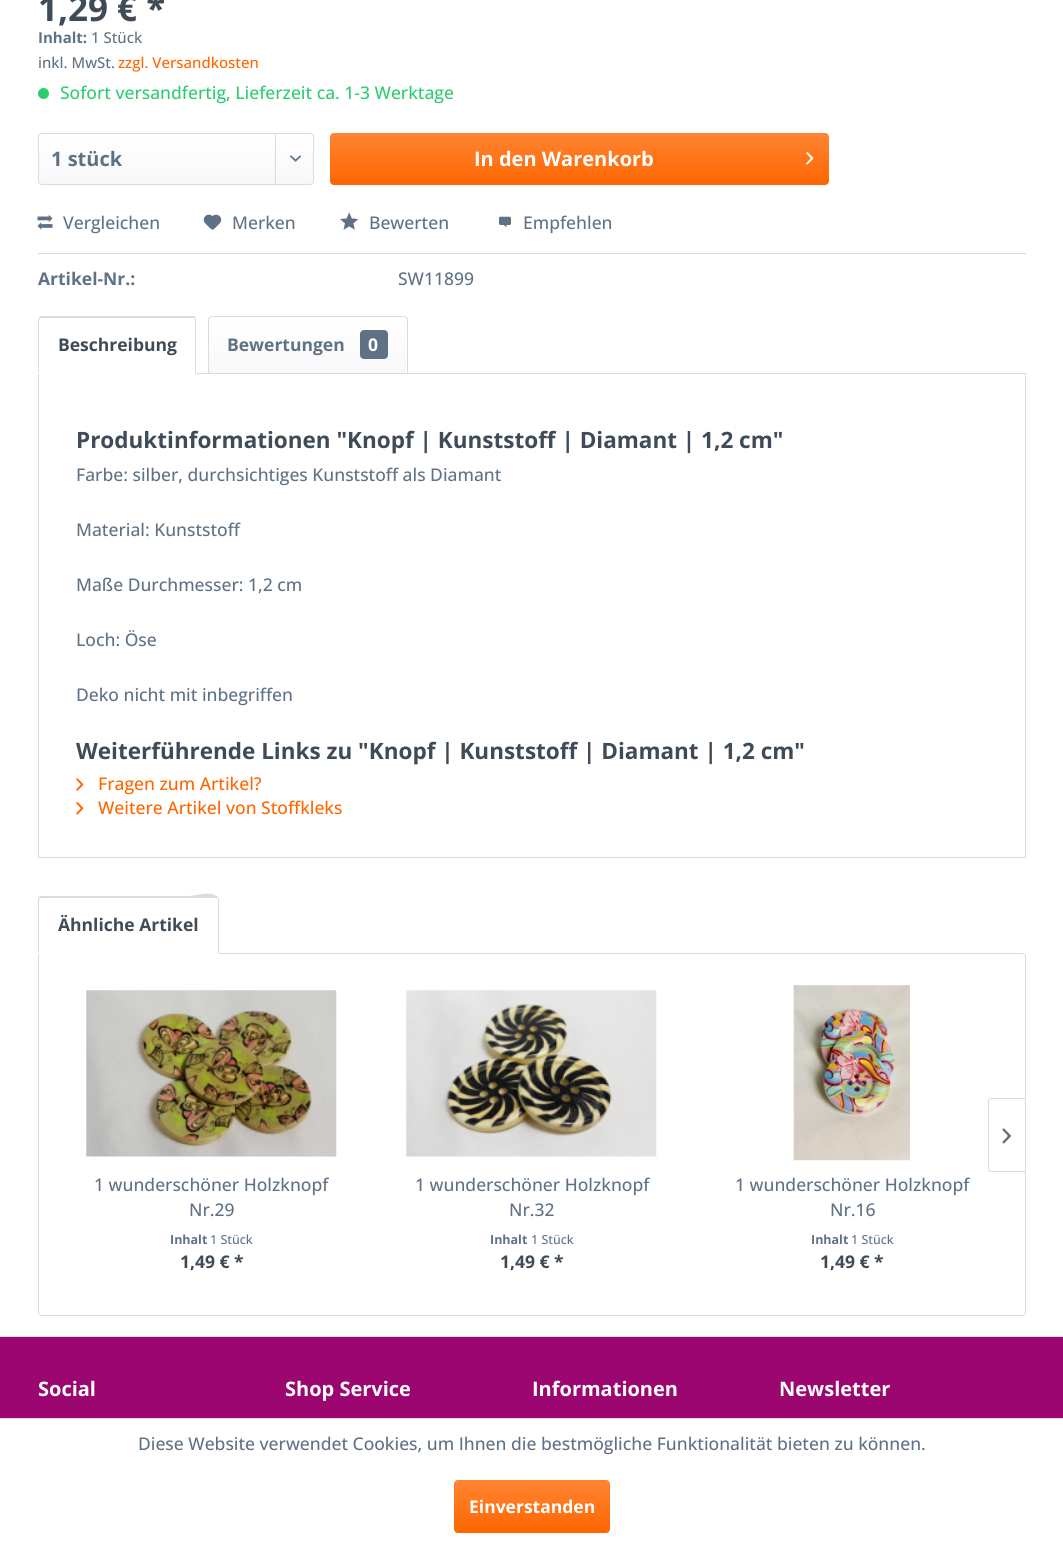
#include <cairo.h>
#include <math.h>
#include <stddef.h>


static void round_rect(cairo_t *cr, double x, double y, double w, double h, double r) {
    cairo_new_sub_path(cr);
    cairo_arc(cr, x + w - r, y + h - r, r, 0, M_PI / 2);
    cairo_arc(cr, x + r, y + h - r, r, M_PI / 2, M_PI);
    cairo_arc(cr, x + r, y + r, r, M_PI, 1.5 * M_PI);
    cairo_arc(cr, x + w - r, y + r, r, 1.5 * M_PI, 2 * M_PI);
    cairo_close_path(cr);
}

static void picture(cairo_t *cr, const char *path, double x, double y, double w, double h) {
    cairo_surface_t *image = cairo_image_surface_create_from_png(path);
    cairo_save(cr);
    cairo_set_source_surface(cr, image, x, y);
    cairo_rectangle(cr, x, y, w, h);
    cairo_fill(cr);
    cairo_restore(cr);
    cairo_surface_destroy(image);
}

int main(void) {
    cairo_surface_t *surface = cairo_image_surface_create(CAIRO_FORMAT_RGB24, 1063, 1544);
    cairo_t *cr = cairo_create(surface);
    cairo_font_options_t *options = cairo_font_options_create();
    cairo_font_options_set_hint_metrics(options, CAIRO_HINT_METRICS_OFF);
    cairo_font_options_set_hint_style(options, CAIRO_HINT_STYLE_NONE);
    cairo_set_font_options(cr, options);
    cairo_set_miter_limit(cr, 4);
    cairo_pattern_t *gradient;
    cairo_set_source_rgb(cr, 1, 1, 1);
    cairo_paint(cr);
    cairo_select_font_face(cr, "Open Sans", CAIRO_FONT_SLANT_NORMAL, CAIRO_FONT_WEIGHT_BOLD);
    cairo_set_font_size(cr, 35);
    cairo_set_source_rgb(cr, 0.247, 0.298, 0.345);
    cairo_move_to(cr, 38, 21);
    cairo_show_text(cr, "1,29 € *");
    cairo_set_font_size(cr, 15);
    cairo_set_source_rgb(cr, 0.373, 0.447, 0.522);
    cairo_move_to(cr, 38, 43);
    cairo_show_text(cr, "Inhalt:");
    cairo_select_font_face(cr, "Open Sans Medium", CAIRO_FONT_SLANT_NORMAL, CAIRO_FONT_WEIGHT_NORMAL);
    cairo_move_to(cr, 91, 43);
    cairo_show_text(cr, "1 Stück");
    cairo_move_to(cr, 38, 68);
    cairo_show_text(cr, "inkl. MwSt.");
    cairo_set_source_rgb(cr, 1, 0.4, 0);
    cairo_move_to(cr, 118, 68);
    cairo_show_text(cr, "zzgl. Versandkosten");
    cairo_set_source_rgb(cr, 0.18, 0.8, 0.443);
    cairo_new_path(cr);
    cairo_arc(cr, 43.5, 93.5, 5.5, 0, 2 * M_PI);
    cairo_fill(cr);
    cairo_set_font_size(cr, 17.5);
    cairo_move_to(cr, 60, 99);
    cairo_show_text(cr, "Sofort versandfertig, Lieferzeit ca. 1-3 Werktage");
    gradient = cairo_pattern_create_linear(176, 134, 176, 184);
    cairo_pattern_add_color_stop_rgba(gradient, 0, 1, 1, 1, 1);
    cairo_pattern_add_color_stop_rgba(gradient, 1, 0.973, 0.973, 0.98, 1);
    cairo_set_source(cr, gradient);
    cairo_pattern_destroy(gradient);
    round_rect(cr, 39, 134, 274, 50, 2.5);
    cairo_fill(cr);
    round_rect(cr, 38.5, 133.5, 275, 51, 3.5);
    cairo_set_source_rgb(cr, 0.855, 0.855, 0.898);
    cairo_set_line_width(cr, 1);
    cairo_stroke(cr);
    cairo_select_font_face(cr, "Open Sans", CAIRO_FONT_SLANT_NORMAL, CAIRO_FONT_WEIGHT_BOLD);
    cairo_set_font_size(cr, 20);
    cairo_set_source_rgb(cr, 0.373, 0.447, 0.522);
    cairo_move_to(cr, 51, 166);
    cairo_show_text(cr, "1 stück");
    cairo_set_source_rgb(cr, 0.855, 0.855, 0.898);
    cairo_rectangle(cr, 275, 134, 1, 50);
    cairo_fill(cr);
    picture(cr, "img1.png", 290, 155, 11, 7);
    gradient = cairo_pattern_create_linear(579, 132, 579, 185);
    cairo_pattern_add_color_stop_rgba(gradient, 0, 1, 0.522, 0.2, 1);
    cairo_pattern_add_color_stop_rgba(gradient, 1, 1, 0.4, 0, 1);
    cairo_set_source(cr, gradient);
    cairo_pattern_destroy(gradient);
    round_rect(cr, 330, 133, 499, 52, 4);
    cairo_fill(cr);
    cairo_set_source_rgb(cr, 1, 1, 1);
    cairo_move_to(cr, 474, 166);
    cairo_show_text(cr, "In den Warenkorb");
    picture(cr, "img2.png", 806, 152, 8, 13);
    cairo_set_source_rgb(cr, 0.855, 0.855, 0.898);
    cairo_rectangle(cr, 38, 253, 988, 1);
    cairo_fill(cr);
    picture(cr, "img3.png", 37, 214, 16, 16);
    cairo_select_font_face(cr, "Open Sans Medium", CAIRO_FONT_SLANT_NORMAL, CAIRO_FONT_WEIGHT_NORMAL);
    cairo_set_font_size(cr, 17.5);
    cairo_set_source_rgb(cr, 0.373, 0.447, 0.522);
    cairo_move_to(cr, 63, 229);
    cairo_show_text(cr, "Vergleichen");
    picture(cr, "img4.png", 203, 214, 19, 16);
    cairo_move_to(cr, 232, 229);
    cairo_show_text(cr, "Merken");
    picture(cr, "img5.png", 340, 212, 19, 18);
    cairo_move_to(cr, 369, 229);
    cairo_show_text(cr, "Bewerten");
    picture(cr, "img6.png", 499, 216, 12, 12);
    cairo_move_to(cr, 523, 229);
    cairo_show_text(cr, "Empfehlen");
    cairo_select_font_face(cr, "Open Sans", CAIRO_FONT_SLANT_NORMAL, CAIRO_FONT_WEIGHT_BOLD);
    cairo_move_to(cr, 38, 285);
    cairo_show_text(cr, "Artikel-Nr.:");
    cairo_select_font_face(cr, "Open Sans Medium", CAIRO_FONT_SLANT_NORMAL, CAIRO_FONT_WEIGHT_NORMAL);
    cairo_move_to(cr, 398, 285);
    cairo_show_text(cr, "SW11899");
    cairo_rectangle(cr, 38.5, 373.5, 987, 484);
    cairo_set_source_rgb(cr, 0.855, 0.855, 0.898);
    cairo_stroke(cr);
    cairo_set_source_rgb(cr, 1, 1, 1);
    cairo_new_path(cr);
    cairo_move_to(cr, 42, 316);
    cairo_line_to(cr, 192, 316);
    cairo_curve_to(cr, 194, 316, 196, 318, 196, 320);
    cairo_line_to(cr, 196, 374);
    cairo_line_to(cr, 38, 374);
    cairo_line_to(cr, 38, 320);
    cairo_curve_to(cr, 38, 318, 40, 316, 42, 316);
    cairo_close_path(cr);
    cairo_fill(cr);
    cairo_set_source_rgb(cr, 0.855, 0.855, 0.898);
    cairo_new_path(cr);
    cairo_move_to(cr, 41, 318);
    cairo_line_to(cr, 40, 319);
    cairo_line_to(cr, 39, 317);
    cairo_line_to(cr, 40, 316);
    cairo_line_to(cr, 168, 316);
    cairo_line_to(cr, 194, 316);
    cairo_line_to(cr, 195, 317);
    cairo_line_to(cr, 194, 318);
    cairo_line_to(cr, 192, 318);
    cairo_close_path(cr);
    cairo_fill(cr);
    cairo_new_path(cr);
    cairo_move_to(cr, 195, 317);
    cairo_line_to(cr, 196, 320);
    cairo_line_to(cr, 196, 374);
    cairo_line_to(cr, 194, 372);
    cairo_line_to(cr, 195, 372);
    cairo_line_to(cr, 195, 320);
    cairo_line_to(cr, 194, 318);
    cairo_close_path(cr);
    cairo_fill(cr);
    cairo_set_source_rgb(cr, 1, 1, 1);
    cairo_new_path(cr);
    cairo_move_to(cr, 38, 374);
    cairo_line_to(cr, 39, 372);
    cairo_line_to(cr, 194, 372);
    cairo_line_to(cr, 196, 374);
    cairo_close_path(cr);
    cairo_fill(cr);
    cairo_set_source_rgb(cr, 0.855, 0.855, 0.898);
    cairo_new_path(cr);
    cairo_move_to(cr, 38, 373);
    cairo_line_to(cr, 38, 320);
    cairo_line_to(cr, 39, 317);
    cairo_line_to(cr, 40, 319);
    cairo_line_to(cr, 39, 320);
    cairo_line_to(cr, 39, 372);
    cairo_close_path(cr);
    cairo_fill(cr);
    cairo_select_font_face(cr, "Open Sans", CAIRO_FONT_SLANT_NORMAL, CAIRO_FONT_WEIGHT_BOLD);
    cairo_set_source_rgb(cr, 0.247, 0.298, 0.345);
    cairo_move_to(cr, 58, 351);
    cairo_show_text(cr, "Beschreibung");
    gradient = cairo_pattern_create_linear(308, 318, 308, 373);
    cairo_pattern_add_color_stop_rgba(gradient, 0, 1, 1, 1, 1);
    cairo_pattern_add_color_stop_rgba(gradient, 1, 0.973, 0.973, 0.98, 1);
    cairo_set_source(cr, gradient);
    cairo_pattern_destroy(gradient);
    cairo_new_path(cr);
    cairo_move_to(cr, 211.5, 318);
    cairo_line_to(cr, 403.5, 318);
    cairo_curve_to(cr, 405, 318, 406, 319, 406, 320.5);
    cairo_line_to(cr, 406, 373);
    cairo_line_to(cr, 209, 373);
    cairo_line_to(cr, 209, 320.5);
    cairo_curve_to(cr, 209, 319, 210, 318, 211.5, 318);
    cairo_close_path(cr);
    cairo_fill(cr);
    cairo_new_path(cr);
    cairo_move_to(cr, 212, 316.5);
    cairo_line_to(cr, 404, 316.5);
    cairo_curve_to(cr, 406, 316.5, 407.5, 318, 407.5, 320);
    cairo_line_to(cr, 407.5, 373.5);
    cairo_line_to(cr, 208.5, 373.5);
    cairo_line_to(cr, 208.5, 320);
    cairo_curve_to(cr, 208.5, 318, 210, 316.5, 212, 316.5);
    cairo_close_path(cr);
    cairo_set_source_rgb(cr, 0.855, 0.855, 0.898);
    cairo_stroke(cr);
    cairo_set_source_rgb(cr, 0.373, 0.447, 0.522);
    cairo_move_to(cr, 227, 351);
    cairo_show_text(cr, "Bewertungen");
    round_rect(cr, 360, 330, 28, 29, 4);
    cairo_fill(cr);
    cairo_set_source_rgb(cr, 1, 1, 1);
    cairo_move_to(cr, 368, 351);
    cairo_show_text(cr, "0");
    cairo_set_font_size(cr, 22.5);
    cairo_set_source_rgb(cr, 0.247, 0.298, 0.345);
    cairo_move_to(cr, 76, 448);
    cairo_show_text(cr, "Produktinformationen \"Knopf | Kunststoff | Diamant | 1,2 cm\"");
    cairo_select_font_face(cr, "Open Sans Medium", CAIRO_FONT_SLANT_NORMAL, CAIRO_FONT_WEIGHT_NORMAL);
    cairo_set_font_size(cr, 17.5);
    cairo_set_source_rgb(cr, 0.373, 0.447, 0.522);
    cairo_move_to(cr, 76, 481);
    cairo_show_text(cr, "Farbe: silber, durchsichtiges Kunststoff als Diamant");
    cairo_move_to(cr, 76, 536);
    cairo_show_text(cr, "Material: Kunststoff");
    cairo_move_to(cr, 76, 591);
    cairo_show_text(cr, "Maße Durchmesser: 1,2 cm");
    cairo_move_to(cr, 76, 646);
    cairo_show_text(cr, "Loch: Öse");
    cairo_move_to(cr, 76, 701);
    cairo_show_text(cr, "Deko nicht mit inbegriffen");
    cairo_select_font_face(cr, "Open Sans", CAIRO_FONT_SLANT_NORMAL, CAIRO_FONT_WEIGHT_BOLD);
    cairo_set_font_size(cr, 22.5);
    cairo_set_source_rgb(cr, 0.247, 0.298, 0.345);
    cairo_move_to(cr, 76, 759);
    cairo_show_text(cr, "Weiterführende Links zu \"Knopf | Kunststoff | Diamant | 1,2 cm\"");
    picture(cr, "img7.png", 76, 778, 8, 13);
    cairo_select_font_face(cr, "Open Sans Medium", CAIRO_FONT_SLANT_NORMAL, CAIRO_FONT_WEIGHT_NORMAL);
    cairo_set_font_size(cr, 17.5);
    cairo_set_source_rgb(cr, 1, 0.4, 0);
    cairo_move_to(cr, 98, 790);
    cairo_show_text(cr, "Fragen zum Artikel?");
    picture(cr, "img8.png", 76, 802, 8, 13);
    cairo_move_to(cr, 98, 814);
    cairo_show_text(cr, "Weitere Artikel von Stoffkleks");
    round_rect(cr, 38.5, 953.5, 987, 362, 3.5);
    cairo_set_source_rgb(cr, 0.855, 0.855, 0.898);
    cairo_stroke(cr);
    cairo_set_source_rgb(cr, 1, 1, 1);
    cairo_new_path(cr);
    cairo_move_to(cr, 42, 896);
    cairo_line_to(cr, 215, 896);
    cairo_curve_to(cr, 217, 896, 219, 898, 219, 900);
    cairo_line_to(cr, 219, 954);
    cairo_line_to(cr, 38, 954);
    cairo_line_to(cr, 38, 900);
    cairo_curve_to(cr, 38, 898, 40, 896, 42, 896);
    cairo_close_path(cr);
    cairo_fill(cr);
    cairo_set_source_rgb(cr, 0.855, 0.855, 0.898);
    cairo_new_path(cr);
    cairo_move_to(cr, 41, 898);
    cairo_line_to(cr, 40, 899);
    cairo_line_to(cr, 39, 897);
    cairo_line_to(cr, 40, 896);
    cairo_line_to(cr, 187, 896);
    cairo_curve_to(cr, 197, 896, 210, 890, 218, 897);
    cairo_line_to(cr, 217, 898);
    cairo_line_to(cr, 215, 898);
    cairo_close_path(cr);
    cairo_fill(cr);
    cairo_new_path(cr);
    cairo_move_to(cr, 218, 897);
    cairo_line_to(cr, 219, 899);
    cairo_line_to(cr, 219, 954);
    cairo_line_to(cr, 217, 952);
    cairo_line_to(cr, 218, 952);
    cairo_line_to(cr, 218, 900);
    cairo_line_to(cr, 217, 898);
    cairo_close_path(cr);
    cairo_fill(cr);
    cairo_set_source_rgb(cr, 1, 1, 1);
    cairo_new_path(cr);
    cairo_move_to(cr, 219, 954);
    cairo_line_to(cr, 38, 954);
    cairo_line_to(cr, 39, 952);
    cairo_line_to(cr, 217, 952);
    cairo_close_path(cr);
    cairo_fill(cr);
    cairo_set_source_rgb(cr, 0.855, 0.855, 0.898);
    cairo_new_path(cr);
    cairo_move_to(cr, 38, 953);
    cairo_line_to(cr, 38, 900);
    cairo_line_to(cr, 39, 897);
    cairo_line_to(cr, 40, 899);
    cairo_line_to(cr, 39, 900);
    cairo_line_to(cr, 39, 952);
    cairo_close_path(cr);
    cairo_fill(cr);
    cairo_select_font_face(cr, "Open Sans", CAIRO_FONT_SLANT_NORMAL, CAIRO_FONT_WEIGHT_BOLD);
    cairo_set_source_rgb(cr, 0.247, 0.298, 0.345);
    cairo_move_to(cr, 58, 931);
    cairo_show_text(cr, "Ähnliche Artikel");
    cairo_set_source_rgb(cr, 0.855, 0.855, 0.898);
    cairo_set_fill_rule(cr, CAIRO_FILL_RULE_EVEN_ODD);
    cairo_new_path(cr);
    cairo_move_to(cr, 991, 1098);
    cairo_line_to(cr, 1025, 1098);
    cairo_line_to(cr, 1025, 1172);
    cairo_line_to(cr, 991, 1172);
    cairo_curve_to(cr, 989, 1172, 988, 1171, 988, 1169);
    cairo_line_to(cr, 988, 1101);
    cairo_curve_to(cr, 988, 1099, 989, 1098, 991, 1098);
    cairo_close_path(cr);
    cairo_move_to(cr, 991, 1099);
    cairo_line_to(cr, 1025, 1099);
    cairo_line_to(cr, 1025, 1171);
    cairo_line_to(cr, 991, 1171);
    cairo_curve_to(cr, 990, 1171, 989, 1170, 989, 1169);
    cairo_line_to(cr, 989, 1101);
    cairo_curve_to(cr, 989, 1100, 990, 1099, 991, 1099);
    cairo_close_path(cr);
    cairo_fill(cr);
    picture(cr, "img9.png", 1002, 1128, 9, 16);
    picture(cr, "img10.png", 86, 990, 251, 167);
    cairo_select_font_face(cr, "Open Sans Medium", CAIRO_FONT_SLANT_NORMAL, CAIRO_FONT_WEIGHT_NORMAL);
    cairo_set_source_rgb(cr, 0.373, 0.447, 0.522);
    cairo_move_to(cr, 94, 1191);
    cairo_show_text(cr, "1 wunderschöner Holzknopf");
    cairo_move_to(cr, 189, 1216);
    cairo_show_text(cr, "Nr.29");
    cairo_select_font_face(cr, "Open Sans", CAIRO_FONT_SLANT_NORMAL, CAIRO_FONT_WEIGHT_BOLD);
    cairo_set_font_size(cr, 12.5);
    cairo_move_to(cr, 170, 1244);
    cairo_show_text(cr, "Inhalt");
    cairo_select_font_face(cr, "Open Sans Medium", CAIRO_FONT_SLANT_NORMAL, CAIRO_FONT_WEIGHT_NORMAL);
    cairo_move_to(cr, 210, 1244);
    cairo_show_text(cr, "1 Stück");
    cairo_select_font_face(cr, "Open Sans", CAIRO_FONT_SLANT_NORMAL, CAIRO_FONT_WEIGHT_BOLD);
    cairo_set_font_size(cr, 17.5);
    cairo_set_source_rgb(cr, 0.247, 0.298, 0.345);
    cairo_move_to(cr, 180, 1268);
    cairo_show_text(cr, "1,49 € *");
    picture(cr, "img11.png", 406, 990, 251, 167);
    cairo_select_font_face(cr, "Open Sans Medium", CAIRO_FONT_SLANT_NORMAL, CAIRO_FONT_WEIGHT_NORMAL);
    cairo_set_source_rgb(cr, 0.373, 0.447, 0.522);
    cairo_move_to(cr, 415, 1191);
    cairo_show_text(cr, "1 wunderschöner Holzknopf");
    cairo_move_to(cr, 509, 1216);
    cairo_show_text(cr, "Nr.32");
    cairo_select_font_face(cr, "Open Sans", CAIRO_FONT_SLANT_NORMAL, CAIRO_FONT_WEIGHT_BOLD);
    cairo_set_font_size(cr, 12.5);
    cairo_move_to(cr, 490, 1244);
    cairo_show_text(cr, "Inhalt");
    cairo_select_font_face(cr, "Open Sans Medium", CAIRO_FONT_SLANT_NORMAL, CAIRO_FONT_WEIGHT_NORMAL);
    cairo_move_to(cr, 531, 1244);
    cairo_show_text(cr, "1 Stück");
    cairo_select_font_face(cr, "Open Sans", CAIRO_FONT_SLANT_NORMAL, CAIRO_FONT_WEIGHT_BOLD);
    cairo_set_font_size(cr, 17.5);
    cairo_set_source_rgb(cr, 0.247, 0.298, 0.345);
    cairo_move_to(cr, 500, 1268);
    cairo_show_text(cr, "1,49 € *");
    picture(cr, "img12.png", 793, 985, 117, 176);
    cairo_select_font_face(cr, "Open Sans Medium", CAIRO_FONT_SLANT_NORMAL, CAIRO_FONT_WEIGHT_NORMAL);
    cairo_set_source_rgb(cr, 0.373, 0.447, 0.522);
    cairo_move_to(cr, 735, 1191);
    cairo_show_text(cr, "1 wunderschöner Holzknopf");
    cairo_move_to(cr, 830, 1216);
    cairo_show_text(cr, "Nr.16");
    cairo_select_font_face(cr, "Open Sans", CAIRO_FONT_SLANT_NORMAL, CAIRO_FONT_WEIGHT_BOLD);
    cairo_set_font_size(cr, 12.5);
    cairo_move_to(cr, 811, 1244);
    cairo_show_text(cr, "Inhalt");
    cairo_select_font_face(cr, "Open Sans Medium", CAIRO_FONT_SLANT_NORMAL, CAIRO_FONT_WEIGHT_NORMAL);
    cairo_move_to(cr, 851, 1244);
    cairo_show_text(cr, "1 Stück");
    cairo_select_font_face(cr, "Open Sans", CAIRO_FONT_SLANT_NORMAL, CAIRO_FONT_WEIGHT_BOLD);
    cairo_set_font_size(cr, 17.5);
    cairo_set_source_rgb(cr, 0.247, 0.298, 0.345);
    cairo_move_to(cr, 820, 1268);
    cairo_show_text(cr, "1,49 € *");
    cairo_set_source_rgb(cr, 0.608, 0.027, 0.443);
    cairo_rectangle(cr, 0, 1337, 1063, 81);
    cairo_fill(cr);
    cairo_set_source_rgb(cr, 0.855, 0.855, 0.898);
    cairo_rectangle(cr, 0, 1336, 1063, 1);
    cairo_fill(cr);
    cairo_set_font_size(cr, 20);
    cairo_set_source_rgb(cr, 1, 1, 1);
    cairo_move_to(cr, 38, 1396);
    cairo_show_text(cr, "Social");
    cairo_move_to(cr, 285, 1396);
    cairo_show_text(cr, "Shop Service");
    cairo_move_to(cr, 532, 1396);
    cairo_show_text(cr, "Informationen");
    cairo_move_to(cr, 779, 1396);
    cairo_show_text(cr, "Newsletter");
    cairo_set_source_rgb(cr, 0.855, 0.855, 0.898);
    cairo_rectangle(cr, 0, 1418, 1063, 1);
    cairo_fill(cr);
    cairo_select_font_face(cr, "Open Sans Medium", CAIRO_FONT_SLANT_NORMAL, CAIRO_FONT_WEIGHT_NORMAL);
    cairo_set_font_size(cr, 17.5);
    cairo_set_source_rgb(cr, 0.373, 0.447, 0.522);
    cairo_move_to(cr, 138, 1450);
    cairo_show_text(cr, "Diese Website verwendet Cookies, um Ihnen die bestmögliche Funktionalität bieten zu können.");
    gradient = cairo_pattern_create_linear(532, 1480, 532, 1533);
    cairo_pattern_add_color_stop_rgba(gradient, 0, 1, 0.522, 0.2, 1);
    cairo_pattern_add_color_stop_rgba(gradient, 1, 1, 0.4, 0, 1);
    cairo_set_source(cr, gradient);
    cairo_pattern_destroy(gradient);
    round_rect(cr, 454, 1480, 156, 53, 4);
    cairo_fill(cr);
    cairo_select_font_face(cr, "Open Sans", CAIRO_FONT_SLANT_NORMAL, CAIRO_FONT_WEIGHT_BOLD);
    cairo_set_source_rgb(cr, 1, 1, 1);
    cairo_move_to(cr, 469, 1513);
    cairo_show_text(cr, "Einverstanden");
    cairo_surface_write_to_png(surface, "page.png");
    cairo_font_options_destroy(options);
    cairo_destroy(cr);
    cairo_surface_destroy(surface);
    return 0;
}
